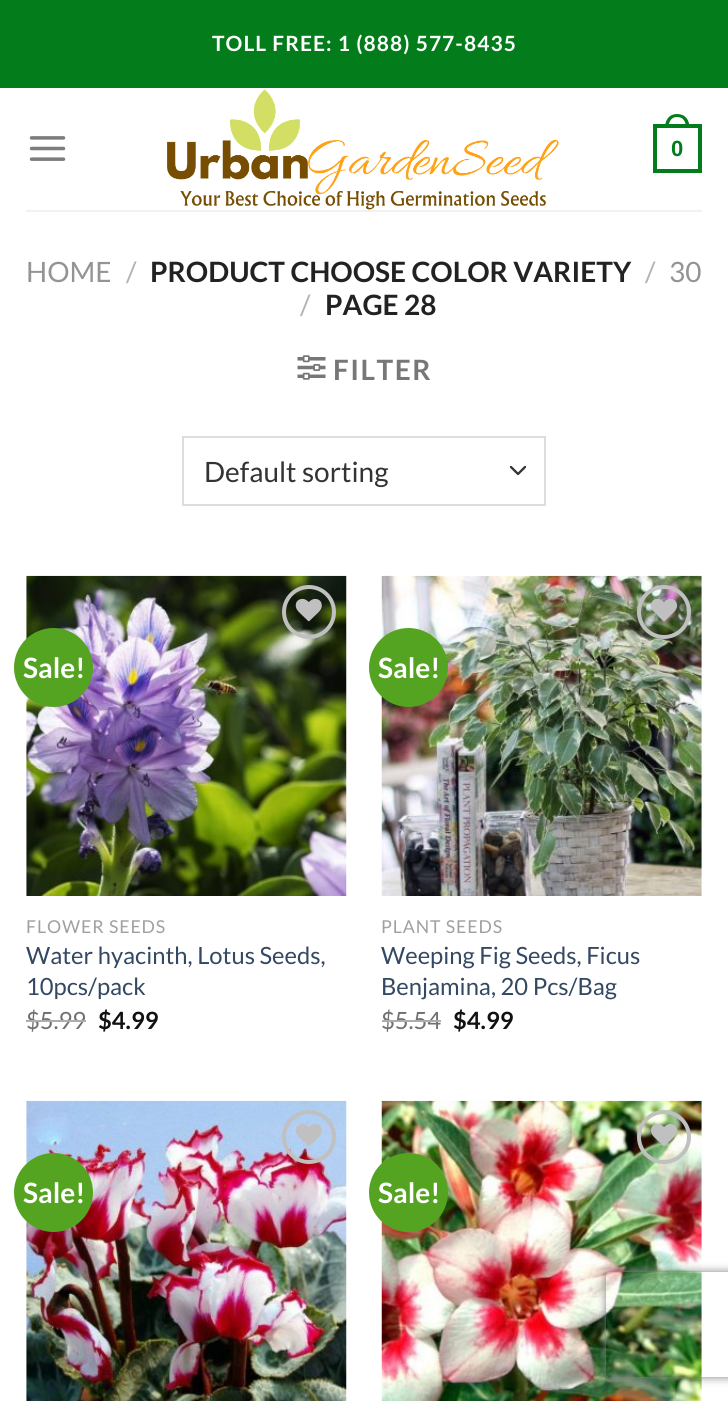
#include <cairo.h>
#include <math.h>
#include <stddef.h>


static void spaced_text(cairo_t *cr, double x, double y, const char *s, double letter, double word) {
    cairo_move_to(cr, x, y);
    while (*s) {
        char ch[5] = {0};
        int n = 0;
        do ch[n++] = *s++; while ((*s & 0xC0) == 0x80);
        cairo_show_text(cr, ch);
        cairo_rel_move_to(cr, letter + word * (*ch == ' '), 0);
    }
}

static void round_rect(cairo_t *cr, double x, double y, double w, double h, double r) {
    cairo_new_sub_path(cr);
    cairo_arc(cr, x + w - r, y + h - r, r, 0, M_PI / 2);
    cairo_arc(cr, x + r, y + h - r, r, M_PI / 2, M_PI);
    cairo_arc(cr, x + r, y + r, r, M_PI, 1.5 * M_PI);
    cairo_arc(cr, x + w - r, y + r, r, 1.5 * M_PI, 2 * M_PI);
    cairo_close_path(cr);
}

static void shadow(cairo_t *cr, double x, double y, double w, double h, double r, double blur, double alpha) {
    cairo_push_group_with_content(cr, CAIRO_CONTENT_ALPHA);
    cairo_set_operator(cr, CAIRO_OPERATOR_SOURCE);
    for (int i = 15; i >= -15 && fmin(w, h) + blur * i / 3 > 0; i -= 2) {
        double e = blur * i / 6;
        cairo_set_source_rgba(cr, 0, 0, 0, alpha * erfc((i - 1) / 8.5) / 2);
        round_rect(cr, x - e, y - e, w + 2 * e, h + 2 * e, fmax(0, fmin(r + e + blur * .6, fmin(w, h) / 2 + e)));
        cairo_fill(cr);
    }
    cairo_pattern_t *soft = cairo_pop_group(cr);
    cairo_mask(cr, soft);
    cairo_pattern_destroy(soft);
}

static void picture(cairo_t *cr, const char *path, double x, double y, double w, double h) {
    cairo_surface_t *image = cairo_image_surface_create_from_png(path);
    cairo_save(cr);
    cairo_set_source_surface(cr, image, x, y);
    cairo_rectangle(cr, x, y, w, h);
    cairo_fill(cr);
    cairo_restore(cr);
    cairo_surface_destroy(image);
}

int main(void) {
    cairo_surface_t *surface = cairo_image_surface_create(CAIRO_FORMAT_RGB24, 728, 1401);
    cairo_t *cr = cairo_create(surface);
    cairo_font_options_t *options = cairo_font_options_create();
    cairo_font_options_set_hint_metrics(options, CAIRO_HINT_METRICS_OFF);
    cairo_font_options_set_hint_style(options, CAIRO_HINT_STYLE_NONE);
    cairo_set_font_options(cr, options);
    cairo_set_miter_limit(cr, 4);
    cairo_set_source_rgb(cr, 1, 1, 1);
    cairo_paint(cr);
    cairo_set_source_rgb(cr, 0.012, 0.486, 0.106);
    cairo_rectangle(cr, 0, 0, 728, 88);
    cairo_fill(cr);
    cairo_select_font_face(cr, "Lato", CAIRO_FONT_SLANT_NORMAL, CAIRO_FONT_WEIGHT_BOLD);
    cairo_set_font_size(cr, 21);
    cairo_set_source_rgb(cr, 1, 1, 1);
    spaced_text(cr, 212, 51, "TOLL FREE: 1 (888) 577-8435", 1.05, 0);
    picture(cr, "img1.png", 29, 136, 37, 25);
    picture(cr, "img2.png", 167, 89, 392, 121);
    cairo_rectangle(cr, 655, 126, 45, 45);
    cairo_set_source_rgb(cr, 0.012, 0.486, 0.106);
    cairo_set_line_width(cr, 4);
    cairo_stroke(cr);
    cairo_set_fill_rule(cr, CAIRO_FILL_RULE_EVEN_ODD);
    cairo_new_path(cr);
    cairo_move_to(cr, 677, 114);
    cairo_curve_to(cr, 685.5, 114, 689.5, 120, 689.5, 128);
    cairo_line_to(cr, 665, 128);
    cairo_curve_to(cr, 665, 120, 669, 114, 677, 114);
    cairo_close_path(cr);
    cairo_move_to(cr, 677, 117);
    cairo_curve_to(cr, 683.5, 117, 686, 122, 686, 128);
    cairo_line_to(cr, 668.5, 128);
    cairo_curve_to(cr, 668.5, 122, 671, 117, 677, 117);
    cairo_close_path(cr);
    cairo_fill(cr);
    cairo_select_font_face(cr, "Liberation Sans", CAIRO_FONT_SLANT_NORMAL, CAIRO_FONT_WEIGHT_BOLD);
    cairo_set_font_size(cr, 22);
    cairo_move_to(cr, 671, 156);
    cairo_show_text(cr, "0");
    cairo_set_source_rgb(cr, 0.945, 0.945, 0.945);
    cairo_rectangle(cr, 26, 210, 676, 2);
    cairo_fill(cr);
    cairo_select_font_face(cr, "Lato", CAIRO_FONT_SLANT_NORMAL, CAIRO_FONT_WEIGHT_NORMAL);
    cairo_set_font_size(cr, 28);
    cairo_set_source_rgb(cr, 0.58, 0.58, 0.58);
    cairo_move_to(cr, 26, 282);
    cairo_show_text(cr, "HOME");
    cairo_set_source_rgb(cr, 0.698, 0.698, 0.698);
    cairo_move_to(cr, 126, 282);
    cairo_show_text(cr, "/");
    cairo_select_font_face(cr, "Lato", CAIRO_FONT_SLANT_NORMAL, CAIRO_FONT_WEIGHT_BOLD);
    cairo_set_source_rgb(cr, 0.133, 0.133, 0.133);
    cairo_move_to(cr, 150, 282);
    cairo_show_text(cr, "PRODUCT CHOOSE COLOR VARIETY");
    cairo_select_font_face(cr, "Lato", CAIRO_FONT_SLANT_NORMAL, CAIRO_FONT_WEIGHT_NORMAL);
    cairo_set_source_rgb(cr, 0.698, 0.698, 0.698);
    cairo_move_to(cr, 645, 282);
    cairo_show_text(cr, "/");
    cairo_set_source_rgb(cr, 0.58, 0.58, 0.58);
    cairo_move_to(cr, 669, 282);
    cairo_show_text(cr, "30");
    cairo_set_source_rgb(cr, 0.698, 0.698, 0.698);
    cairo_move_to(cr, 300, 315);
    cairo_show_text(cr, "/");
    cairo_select_font_face(cr, "Lato", CAIRO_FONT_SLANT_NORMAL, CAIRO_FONT_WEIGHT_BOLD);
    cairo_set_source_rgb(cr, 0.133, 0.133, 0.133);
    cairo_move_to(cr, 325, 315);
    cairo_show_text(cr, "PAGE 28");
    picture(cr, "img3.png", 297, 355, 29, 25);
    cairo_set_source_rgb(cr, 0.467, 0.467, 0.467);
    spaced_text(cr, 333, 380, "FILTER", 1.5, 0);
    cairo_new_path(cr);
    cairo_move_to(cr, 511, 467);
    cairo_line_to(cr, 518, 474);
    cairo_line_to(cr, 525, 467);
    cairo_set_source_rgb(cr, 0.2, 0.2, 0.2);
    cairo_set_line_width(cr, 2.3);
    cairo_set_line_cap(cr, CAIRO_LINE_CAP_ROUND);
    cairo_set_line_join(cr, CAIRO_LINE_JOIN_ROUND);
    cairo_stroke(cr);
    cairo_rectangle(cr, 183, 437, 362, 68);
    cairo_set_source_rgb(cr, 0.867, 0.867, 0.867);
    cairo_set_line_width(cr, 2);
    cairo_set_line_cap(cr, CAIRO_LINE_CAP_BUTT);
    cairo_set_line_join(cr, CAIRO_LINE_JOIN_MITER);
    cairo_stroke(cr);
    cairo_select_font_face(cr, "Lato", CAIRO_FONT_SLANT_NORMAL, CAIRO_FONT_WEIGHT_NORMAL);
    cairo_set_source_rgb(cr, 0.2, 0.2, 0.2);
    cairo_move_to(cr, 204, 482);
    cairo_show_text(cr, "Default sorting");
    picture(cr, "img4.png", 26, 575, 321, 321);
    cairo_set_source_rgb(cr, 0.329, 0.643, 0.133);
    cairo_arc(cr, 53.5, 667.5, 39.5, 0, 2 * M_PI);
    cairo_fill(cr);
    cairo_select_font_face(cr, "Lato", CAIRO_FONT_SLANT_NORMAL, CAIRO_FONT_WEIGHT_BOLD);
    cairo_set_source_rgb(cr, 1, 1, 1);
    cairo_move_to(cr, 23, 678);
    cairo_show_text(cr, "Sale!");
    cairo_new_path(cr);
    cairo_arc(cr, 309, 612, 25, 0, 2 * M_PI);
    cairo_set_source_rgb(cr, 0.753, 0.753, 0.753);
    cairo_set_line_width(cr, 4);
    cairo_stroke(cr);
    picture(cr, "img5.png", 295, 598, 27, 24);
    cairo_select_font_face(cr, "Lato", CAIRO_FONT_SLANT_NORMAL, CAIRO_FONT_WEIGHT_NORMAL);
    cairo_set_font_size(cr, 17.75);
    cairo_set_source_rgb(cr, 0.627, 0.627, 0.627);
    spaced_text(cr, 26, 933, "FLOWER SEEDS", 0.9, 0);
    cairo_set_font_size(cr, 23.75);
    cairo_set_source_rgb(cr, 0.2, 0.282, 0.384);
    cairo_move_to(cr, 26, 964);
    cairo_show_text(cr, "Water hyacinth, Lotus Seeds,");
    cairo_move_to(cr, 26, 995);
    cairo_show_text(cr, "10pcs/pack");
    cairo_set_source_rgb(cr, 0.439, 0.439, 0.439);
    cairo_move_to(cr, 26, 1029);
    cairo_show_text(cr, "$5.99");
    cairo_set_source_rgb(cr, 0.678, 0.678, 0.678);
    cairo_rectangle(cr, 26, 1020, 60, 2);
    cairo_fill(cr);
    cairo_select_font_face(cr, "Lato", CAIRO_FONT_SLANT_NORMAL, CAIRO_FONT_WEIGHT_BOLD);
    cairo_set_source_rgb(cr, 0.067, 0.067, 0.067);
    cairo_move_to(cr, 98, 1029);
    cairo_show_text(cr, "$4.99");
    picture(cr, "img6.png", 381, 575, 321, 321);
    cairo_set_source_rgb(cr, 0.329, 0.643, 0.133);
    cairo_arc(cr, 408.5, 667.5, 39.5, 0, 2 * M_PI);
    cairo_fill(cr);
    cairo_set_font_size(cr, 28);
    cairo_set_source_rgb(cr, 1, 1, 1);
    cairo_move_to(cr, 378, 678);
    cairo_show_text(cr, "Sale!");
    cairo_new_path(cr);
    cairo_arc(cr, 664, 612, 25, 0, 2 * M_PI);
    cairo_set_source_rgb(cr, 0.753, 0.753, 0.753);
    cairo_stroke(cr);
    picture(cr, "img7.png", 651, 598, 27, 24);
    cairo_select_font_face(cr, "Lato", CAIRO_FONT_SLANT_NORMAL, CAIRO_FONT_WEIGHT_NORMAL);
    cairo_set_font_size(cr, 17.75);
    cairo_set_source_rgb(cr, 0.627, 0.627, 0.627);
    spaced_text(cr, 381, 933, "PLANT SEEDS", 0.9, 0);
    cairo_set_font_size(cr, 23.75);
    cairo_set_source_rgb(cr, 0.2, 0.282, 0.384);
    cairo_move_to(cr, 381, 964);
    cairo_show_text(cr, "Weeping Fig Seeds, Ficus");
    cairo_move_to(cr, 381, 995);
    cairo_show_text(cr, "Benjamina, 20 Pcs/Bag");
    cairo_set_source_rgb(cr, 0.439, 0.439, 0.439);
    cairo_move_to(cr, 381, 1029);
    cairo_show_text(cr, "$5.54");
    cairo_set_source_rgb(cr, 0.678, 0.678, 0.678);
    cairo_rectangle(cr, 382, 1020, 59, 2);
    cairo_fill(cr);
    cairo_select_font_face(cr, "Lato", CAIRO_FONT_SLANT_NORMAL, CAIRO_FONT_WEIGHT_BOLD);
    cairo_set_source_rgb(cr, 0.067, 0.067, 0.067);
    cairo_move_to(cr, 453, 1029);
    cairo_show_text(cr, "$4.99");
    picture(cr, "img8.png", 26, 1100, 321, 301);
    cairo_arc(cr, 309, 1137, 25, 0, 2 * M_PI);
    cairo_set_source_rgb(cr, 0.753, 0.753, 0.753);
    cairo_stroke(cr);
    picture(cr, "img9.png", 295, 1124, 27, 23);
    cairo_set_source_rgb(cr, 0.329, 0.643, 0.133);
    cairo_arc(cr, 53.5, 1192.5, 39.5, 0, 2 * M_PI);
    cairo_fill(cr);
    cairo_set_font_size(cr, 28);
    cairo_set_source_rgb(cr, 1, 1, 1);
    cairo_move_to(cr, 23, 1203);
    cairo_show_text(cr, "Sale!");
    picture(cr, "img10.png", 381, 1100, 321, 301);
    cairo_arc(cr, 664, 1137, 25, 0, 2 * M_PI);
    cairo_set_source_rgb(cr, 0.753, 0.753, 0.753);
    cairo_stroke(cr);
    picture(cr, "img11.png", 651, 1123, 26, 24);
    cairo_set_source_rgb(cr, 0.329, 0.643, 0.133);
    cairo_arc(cr, 408.5, 1192.5, 39.5, 0, 2 * M_PI);
    cairo_fill(cr);
    cairo_set_source_rgb(cr, 1, 1, 1);
    cairo_move_to(cr, 378, 1203);
    cairo_show_text(cr, "Sale!");
    cairo_save(cr);
    cairo_new_path(cr);
    cairo_move_to(cr, 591, 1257);
    cairo_line_to(cr, 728, 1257);
    cairo_line_to(cr, 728, 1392);
    cairo_line_to(cr, 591, 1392);
    cairo_close_path(cr);
    cairo_move_to(cr, 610, 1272);
    cairo_line_to(cr, 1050, 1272);
    cairo_curve_to(cr, 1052, 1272, 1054, 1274, 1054, 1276);
    cairo_line_to(cr, 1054, 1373);
    cairo_curve_to(cr, 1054, 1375, 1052, 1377, 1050, 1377);
    cairo_line_to(cr, 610, 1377);
    cairo_curve_to(cr, 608, 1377, 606, 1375, 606, 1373);
    cairo_line_to(cr, 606, 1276);
    cairo_curve_to(cr, 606, 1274, 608, 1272, 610, 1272);
    cairo_close_path(cr);
    cairo_clip(cr);
    cairo_set_source_rgb(cr, 0.502, 0.502, 0.502);
    shadow(cr, 606, 1272, 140, 105, 4, 4.5, 1);
    cairo_restore(cr);
    cairo_surface_write_to_png(surface, "page.png");
    cairo_font_options_destroy(options);
    cairo_destroy(cr);
    cairo_surface_destroy(surface);
    return 0;
}
